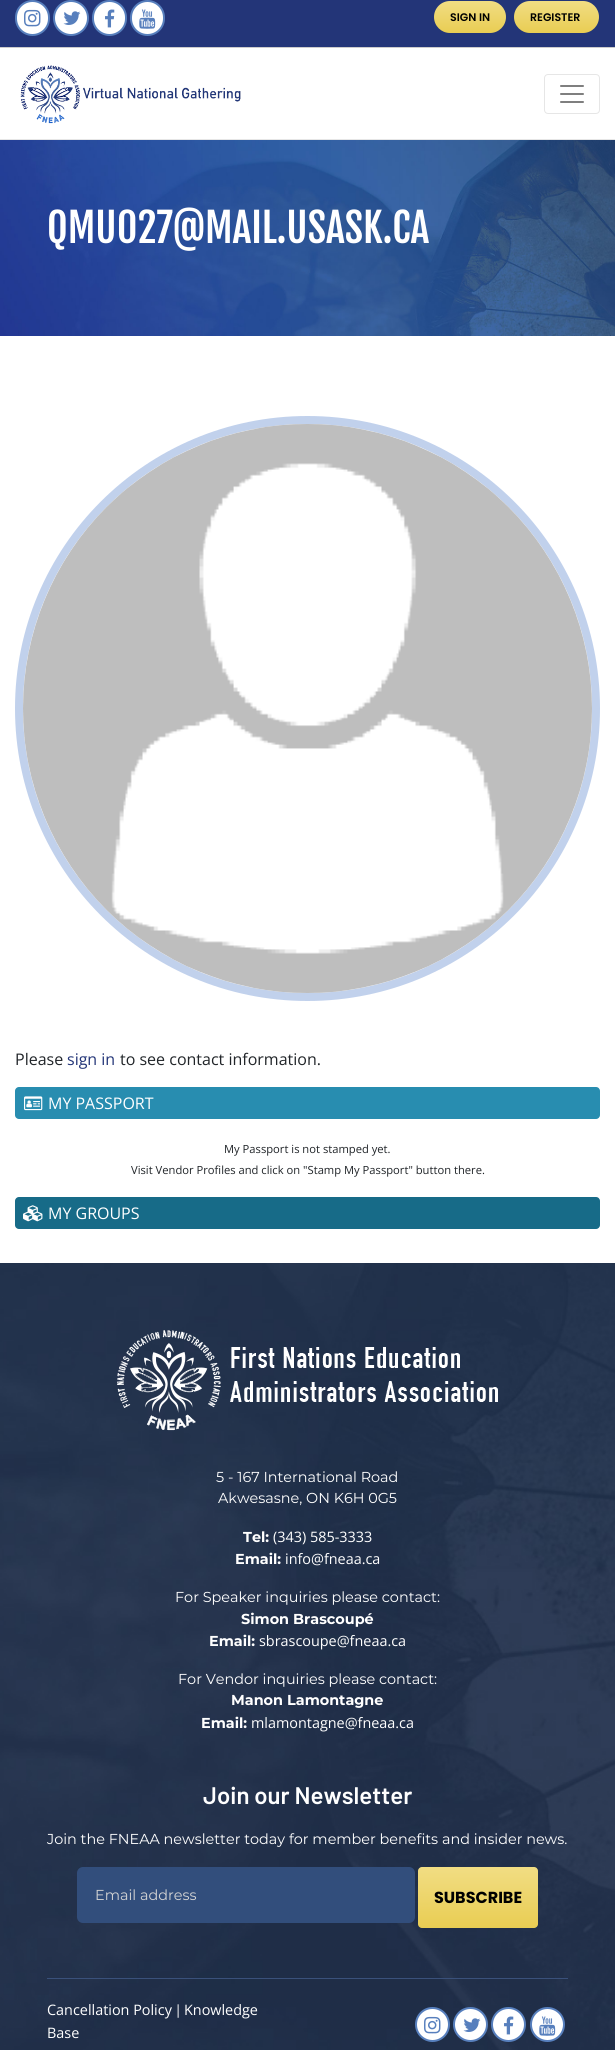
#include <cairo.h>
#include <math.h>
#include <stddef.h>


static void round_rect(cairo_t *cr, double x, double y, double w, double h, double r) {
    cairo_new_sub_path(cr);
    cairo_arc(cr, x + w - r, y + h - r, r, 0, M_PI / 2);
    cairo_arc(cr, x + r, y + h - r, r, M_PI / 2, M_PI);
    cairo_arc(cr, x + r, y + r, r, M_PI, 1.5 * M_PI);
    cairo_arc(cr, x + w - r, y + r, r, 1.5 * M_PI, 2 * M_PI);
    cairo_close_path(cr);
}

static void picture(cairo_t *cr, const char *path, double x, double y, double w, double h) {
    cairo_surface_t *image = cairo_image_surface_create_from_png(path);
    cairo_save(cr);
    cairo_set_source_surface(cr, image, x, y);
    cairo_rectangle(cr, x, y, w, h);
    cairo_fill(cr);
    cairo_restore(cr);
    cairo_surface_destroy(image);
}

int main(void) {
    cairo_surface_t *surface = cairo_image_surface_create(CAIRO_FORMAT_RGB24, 615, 2050);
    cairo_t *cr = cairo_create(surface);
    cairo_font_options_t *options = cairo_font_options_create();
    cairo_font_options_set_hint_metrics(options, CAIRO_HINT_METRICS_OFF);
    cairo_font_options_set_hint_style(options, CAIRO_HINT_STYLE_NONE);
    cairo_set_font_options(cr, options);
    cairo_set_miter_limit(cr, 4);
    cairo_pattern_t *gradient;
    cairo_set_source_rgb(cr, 1, 1, 1);
    cairo_paint(cr);
    cairo_set_source_rgb(cr, 0.137, 0.208, 0.471);
    cairo_rectangle(cr, 0, 0, 615, 47);
    cairo_fill(cr);
    cairo_set_source_rgb(cr, 0.8, 0.8, 0.8);
    cairo_rectangle(cr, 0, 47, 615, 1);
    cairo_fill(cr);
    cairo_set_source_rgb(cr, 1, 1, 1);
    round_rect(cr, 16, 1, 33, 34, 16.5);
    cairo_fill_preserve(cr);
    cairo_set_source_rgb(cr, 0.341, 0.498, 0.741);
    cairo_stroke(cr);
    picture(cr, "img1.png", 24, 9, 17, 18);
    cairo_set_source_rgb(cr, 1, 1, 1);
    cairo_arc(cr, 71, 18, 17, 0, 2 * M_PI);
    cairo_fill_preserve(cr);
    cairo_set_source_rgb(cr, 0.341, 0.498, 0.741);
    cairo_stroke(cr);
    picture(cr, "img2.png", 63, 11, 18, 14);
    cairo_set_source_rgb(cr, 1, 1, 1);
    round_rect(cr, 93, 1, 33, 34, 16.5);
    cairo_fill_preserve(cr);
    cairo_set_source_rgb(cr, 0.341, 0.498, 0.741);
    cairo_stroke(cr);
    picture(cr, "img3.png", 105, 9, 10, 19);
    cairo_set_source_rgb(cr, 1, 1, 1);
    round_rect(cr, 131, 1, 33, 34, 16.5);
    cairo_fill_preserve(cr);
    cairo_set_source_rgb(cr, 0.341, 0.498, 0.741);
    cairo_stroke(cr);
    picture(cr, "img4.png", 139, 9, 17, 20);
    gradient = cairo_pattern_create_linear(470, 1, 470, 33);
    cairo_pattern_add_color_stop_rgba(gradient, 0, 0.945, 0.867, 0.514, 1);
    cairo_pattern_add_color_stop_rgba(gradient, 1, 0.914, 0.804, 0.325, 1);
    cairo_set_source(cr, gradient);
    cairo_pattern_destroy(gradient);
    round_rect(cr, 434, 1, 72, 32, 16);
    cairo_fill(cr);
    cairo_select_font_face(cr, "Poppins SemiBold", CAIRO_FONT_SLANT_NORMAL, CAIRO_FONT_WEIGHT_NORMAL);
    cairo_set_font_size(cr, 11);
    cairo_set_source_rgb(cr, 0, 0, 0);
    cairo_move_to(cr, 450, 21);
    cairo_show_text(cr, "SIGN IN");
    gradient = cairo_pattern_create_linear(557, 1, 557, 33);
    cairo_pattern_add_color_stop_rgba(gradient, 0, 0.945, 0.867, 0.514, 1);
    cairo_pattern_add_color_stop_rgba(gradient, 1, 0.914, 0.804, 0.325, 1);
    cairo_set_source(cr, gradient);
    cairo_pattern_destroy(gradient);
    round_rect(cr, 514, 1, 85, 32, 16);
    cairo_fill(cr);
    cairo_set_source_rgb(cr, 0, 0, 0);
    cairo_move_to(cr, 530, 21);
    cairo_show_text(cr, "REGISTER");
    cairo_set_source_rgb(cr, 0.902, 0.902, 0.902);
    cairo_rectangle(cr, 0, 139, 615, 1);
    cairo_fill(cr);
    picture(cr, "img5.png", 20, 65, 221, 59);
    round_rect(cr, 544.5, 74.5, 55, 39, 3.5);
    cairo_set_line_width(cr, 1);
    cairo_stroke(cr);
    picture(cr, "img6.png", 560, 85, 24, 18);
    picture(cr, "img7.png", 0, 140, 615, 196);
    cairo_select_font_face(cr, "Fjalla One", CAIRO_FONT_SLANT_NORMAL, CAIRO_FONT_WEIGHT_NORMAL);
    cairo_set_font_size(cr, 40);
    cairo_set_source_rgb(cr, 1, 1, 1);
    cairo_move_to(cr, 47, 243);
    cairo_show_text(cr, "QMU027@MAIL.USASK.CA");
    cairo_new_path(cr);
    cairo_arc(cr, 307.5, 708.5, 288.5, 0, 2 * M_PI);
    cairo_set_source_rgb(cr, 0.757, 0.82, 0.925);
    cairo_set_line_width(cr, 8);
    cairo_stroke(cr);
    picture(cr, "img8.png", 23, 424, 569, 569);
    cairo_select_font_face(cr, "Open Sans", CAIRO_FONT_SLANT_NORMAL, CAIRO_FONT_WEIGHT_NORMAL);
    cairo_set_font_size(cr, 16);
    cairo_set_source_rgb(cr, 0.129, 0.145, 0.161);
    cairo_move_to(cr, 15, 1065);
    cairo_show_text(cr, "Please");
    cairo_set_source_rgb(cr, 0.137, 0.208, 0.471);
    cairo_move_to(cr, 67, 1065);
    cairo_show_text(cr, "sign in");
    cairo_set_source_rgb(cr, 0.129, 0.145, 0.161);
    cairo_move_to(cr, 120, 1065);
    cairo_show_text(cr, "to see contact information.");
    cairo_set_source_rgb(cr, 0.157, 0.553, 0.69);
    round_rect(cr, 15, 1087, 585, 32, 4);
    cairo_fill(cr);
    picture(cr, "img9.png", 24, 1096, 19, 15);
    cairo_set_source_rgb(cr, 1, 1, 1);
    cairo_move_to(cr, 48, 1109);
    cairo_show_text(cr, "MY PASSPORT");
    cairo_set_font_size(cr, 11.2);
    cairo_set_source_rgb(cr, 0.129, 0.145, 0.161);
    cairo_move_to(cr, 224, 1153);
    cairo_show_text(cr, "My Passport is not stamped yet.");
    cairo_move_to(cr, 131, 1174);
    cairo_show_text(cr, "Visit Vendor Profiles and click on \"Stamp My Passport\" button there.");
    cairo_set_source_rgb(cr, 0.09, 0.42, 0.533);
    round_rect(cr, 15, 1197, 585, 32, 4);
    cairo_fill(cr);
    picture(cr, "img10.png", 23, 1205, 20, 17);
    cairo_set_font_size(cr, 16);
    cairo_set_source_rgb(cr, 1, 1, 1);
    cairo_move_to(cr, 48, 1219);
    cairo_show_text(cr, "MY GROUPS");
    picture(cr, "img11.png", 0, 1263, 615, 787);
    picture(cr, "img12.png", 117, 1330, 381, 101);
    cairo_select_font_face(cr, "Montserrat", CAIRO_FONT_SLANT_NORMAL, CAIRO_FONT_WEIGHT_NORMAL);
    cairo_set_font_size(cr, 14.4);
    cairo_move_to(cr, 216, 1482);
    cairo_show_text(cr, "5 - 167 International Road");
    cairo_move_to(cr, 218, 1503);
    cairo_show_text(cr, "Akwesasne, ON K6H 0G5");
    cairo_select_font_face(cr, "Montserrat", CAIRO_FONT_SLANT_NORMAL, CAIRO_FONT_WEIGHT_BOLD);
    cairo_move_to(cr, 243, 1542);
    cairo_show_text(cr, "Tel:");
    cairo_select_font_face(cr, "Open Sans", CAIRO_FONT_SLANT_NORMAL, CAIRO_FONT_WEIGHT_NORMAL);
    cairo_move_to(cr, 273, 1542);
    cairo_show_text(cr, "(343) 585-3333");
    cairo_select_font_face(cr, "Montserrat", CAIRO_FONT_SLANT_NORMAL, CAIRO_FONT_WEIGHT_BOLD);
    cairo_move_to(cr, 235, 1564);
    cairo_show_text(cr, "Email:");
    cairo_select_font_face(cr, "Open Sans", CAIRO_FONT_SLANT_NORMAL, CAIRO_FONT_WEIGHT_NORMAL);
    cairo_move_to(cr, 285, 1564);
    cairo_show_text(cr, "info@fneaa.ca");
    cairo_select_font_face(cr, "Montserrat", CAIRO_FONT_SLANT_NORMAL, CAIRO_FONT_WEIGHT_NORMAL);
    cairo_move_to(cr, 175, 1602);
    cairo_show_text(cr, "For Speaker inquiries please contact:");
    cairo_select_font_face(cr, "Montserrat", CAIRO_FONT_SLANT_NORMAL, CAIRO_FONT_WEIGHT_BOLD);
    cairo_move_to(cr, 241, 1624);
    cairo_show_text(cr, "Simon Brascoupé");
    cairo_move_to(cr, 209, 1646);
    cairo_show_text(cr, "Email:");
    cairo_select_font_face(cr, "Open Sans", CAIRO_FONT_SLANT_NORMAL, CAIRO_FONT_WEIGHT_NORMAL);
    cairo_move_to(cr, 259, 1646);
    cairo_show_text(cr, "sbrascoupe@fneaa.ca");
    cairo_select_font_face(cr, "Montserrat", CAIRO_FONT_SLANT_NORMAL, CAIRO_FONT_WEIGHT_NORMAL);
    cairo_move_to(cr, 178, 1684);
    cairo_show_text(cr, "For Vendor inquiries please contact:");
    cairo_select_font_face(cr, "Montserrat", CAIRO_FONT_SLANT_NORMAL, CAIRO_FONT_WEIGHT_BOLD);
    cairo_move_to(cr, 231, 1705);
    cairo_show_text(cr, "Manon Lamontagne");
    cairo_move_to(cr, 201, 1728);
    cairo_show_text(cr, "Email:");
    cairo_select_font_face(cr, "Open Sans", CAIRO_FONT_SLANT_NORMAL, CAIRO_FONT_WEIGHT_NORMAL);
    cairo_move_to(cr, 251, 1728);
    cairo_show_text(cr, "mlamontagne@fneaa.ca");
    cairo_select_font_face(cr, "Barlow SemiBold", CAIRO_FONT_SLANT_NORMAL, CAIRO_FONT_WEIGHT_NORMAL);
    cairo_set_font_size(cr, 24);
    cairo_move_to(cr, 203, 1804);
    cairo_show_text(cr, "Join our Newsletter");
    cairo_select_font_face(cr, "Montserrat", CAIRO_FONT_SLANT_NORMAL, CAIRO_FONT_WEIGHT_NORMAL);
    cairo_set_font_size(cr, 14.4);
    cairo_move_to(cr, 47, 1844);
    cairo_show_text(cr, "Join the FNEAA newsletter today for member benefits and insider news.");
    cairo_set_source_rgb(cr, 0.196, 0.306, 0.486);
    round_rect(cr, 77, 1867, 338, 56, 6);
    cairo_fill(cr);
    cairo_set_source_rgb(cr, 0.831, 0.831, 0.831);
    cairo_move_to(cr, 95, 1900);
    cairo_show_text(cr, "Email address");
    gradient = cairo_pattern_create_linear(478, 1867, 478, 1928);
    cairo_pattern_add_color_stop_rgba(gradient, 0, 0.945, 0.867, 0.514, 1);
    cairo_pattern_add_color_stop_rgba(gradient, 1, 0.914, 0.804, 0.325, 1);
    cairo_set_source(cr, gradient);
    cairo_pattern_destroy(gradient);
    round_rect(cr, 418, 1867, 120, 61, 4);
    cairo_fill(cr);
    cairo_select_font_face(cr, "Poppins", CAIRO_FONT_SLANT_NORMAL, CAIRO_FONT_WEIGHT_BOLD);
    cairo_set_font_size(cr, 16);
    cairo_set_source_rgb(cr, 0, 0, 0);
    cairo_move_to(cr, 434, 1903);
    cairo_show_text(cr, "SUBSCRIBE");
    cairo_set_source_rgb(cr, 0.227, 0.318, 0.482);
    cairo_rectangle(cr, 47, 1978, 521, 1);
    cairo_fill(cr);
    cairo_select_font_face(cr, "Open Sans", CAIRO_FONT_SLANT_NORMAL, CAIRO_FONT_WEIGHT_NORMAL);
    cairo_set_font_size(cr, 14.4);
    cairo_set_source_rgb(cr, 1, 1, 1);
    cairo_move_to(cr, 47, 2015);
    cairo_show_text(cr, "Cancellation Policy");
    cairo_select_font_face(cr, "Montserrat", CAIRO_FONT_SLANT_NORMAL, CAIRO_FONT_WEIGHT_NORMAL);
    cairo_move_to(cr, 176, 2015);
    cairo_show_text(cr, "|");
    cairo_select_font_face(cr, "Open Sans", CAIRO_FONT_SLANT_NORMAL, CAIRO_FONT_WEIGHT_NORMAL);
    cairo_move_to(cr, 184, 2015);
    cairo_show_text(cr, "Knowledge");
    cairo_move_to(cr, 47, 2038);
    cairo_show_text(cr, "Base");
    cairo_new_path(cr);
    cairo_arc(cr, 432.5, 2024.5, 16.5, 0, 2 * M_PI);
    cairo_fill_preserve(cr);
    cairo_set_source_rgb(cr, 0.341, 0.498, 0.741);
    cairo_set_line_width(cr, 2);
    cairo_stroke(cr);
    picture(cr, "img1.png", 424, 2016, 17, 18);
    cairo_set_source_rgb(cr, 1, 1, 1);
    cairo_arc(cr, 470.5, 2024.5, 16.5, 0, 2 * M_PI);
    cairo_fill_preserve(cr);
    cairo_set_source_rgb(cr, 0.341, 0.498, 0.741);
    cairo_stroke(cr);
    picture(cr, "img2.png", 463, 2018, 18, 14);
    cairo_set_source_rgb(cr, 1, 1, 1);
    cairo_arc(cr, 508.5, 2024.5, 16.5, 0, 2 * M_PI);
    cairo_fill_preserve(cr);
    cairo_set_source_rgb(cr, 0.341, 0.498, 0.741);
    cairo_stroke(cr);
    picture(cr, "img3.png", 504, 2016, 10, 19);
    cairo_set_source_rgb(cr, 1, 1, 1);
    cairo_arc(cr, 547.5, 2024.5, 16.5, 0, 2 * M_PI);
    cairo_fill_preserve(cr);
    cairo_set_source_rgb(cr, 0.341, 0.498, 0.741);
    cairo_stroke(cr);
    picture(cr, "img4.png", 539, 2016, 17, 20);
    cairo_surface_write_to_png(surface, "page.png");
    cairo_font_options_destroy(options);
    cairo_destroy(cr);
    cairo_surface_destroy(surface);
    return 0;
}
